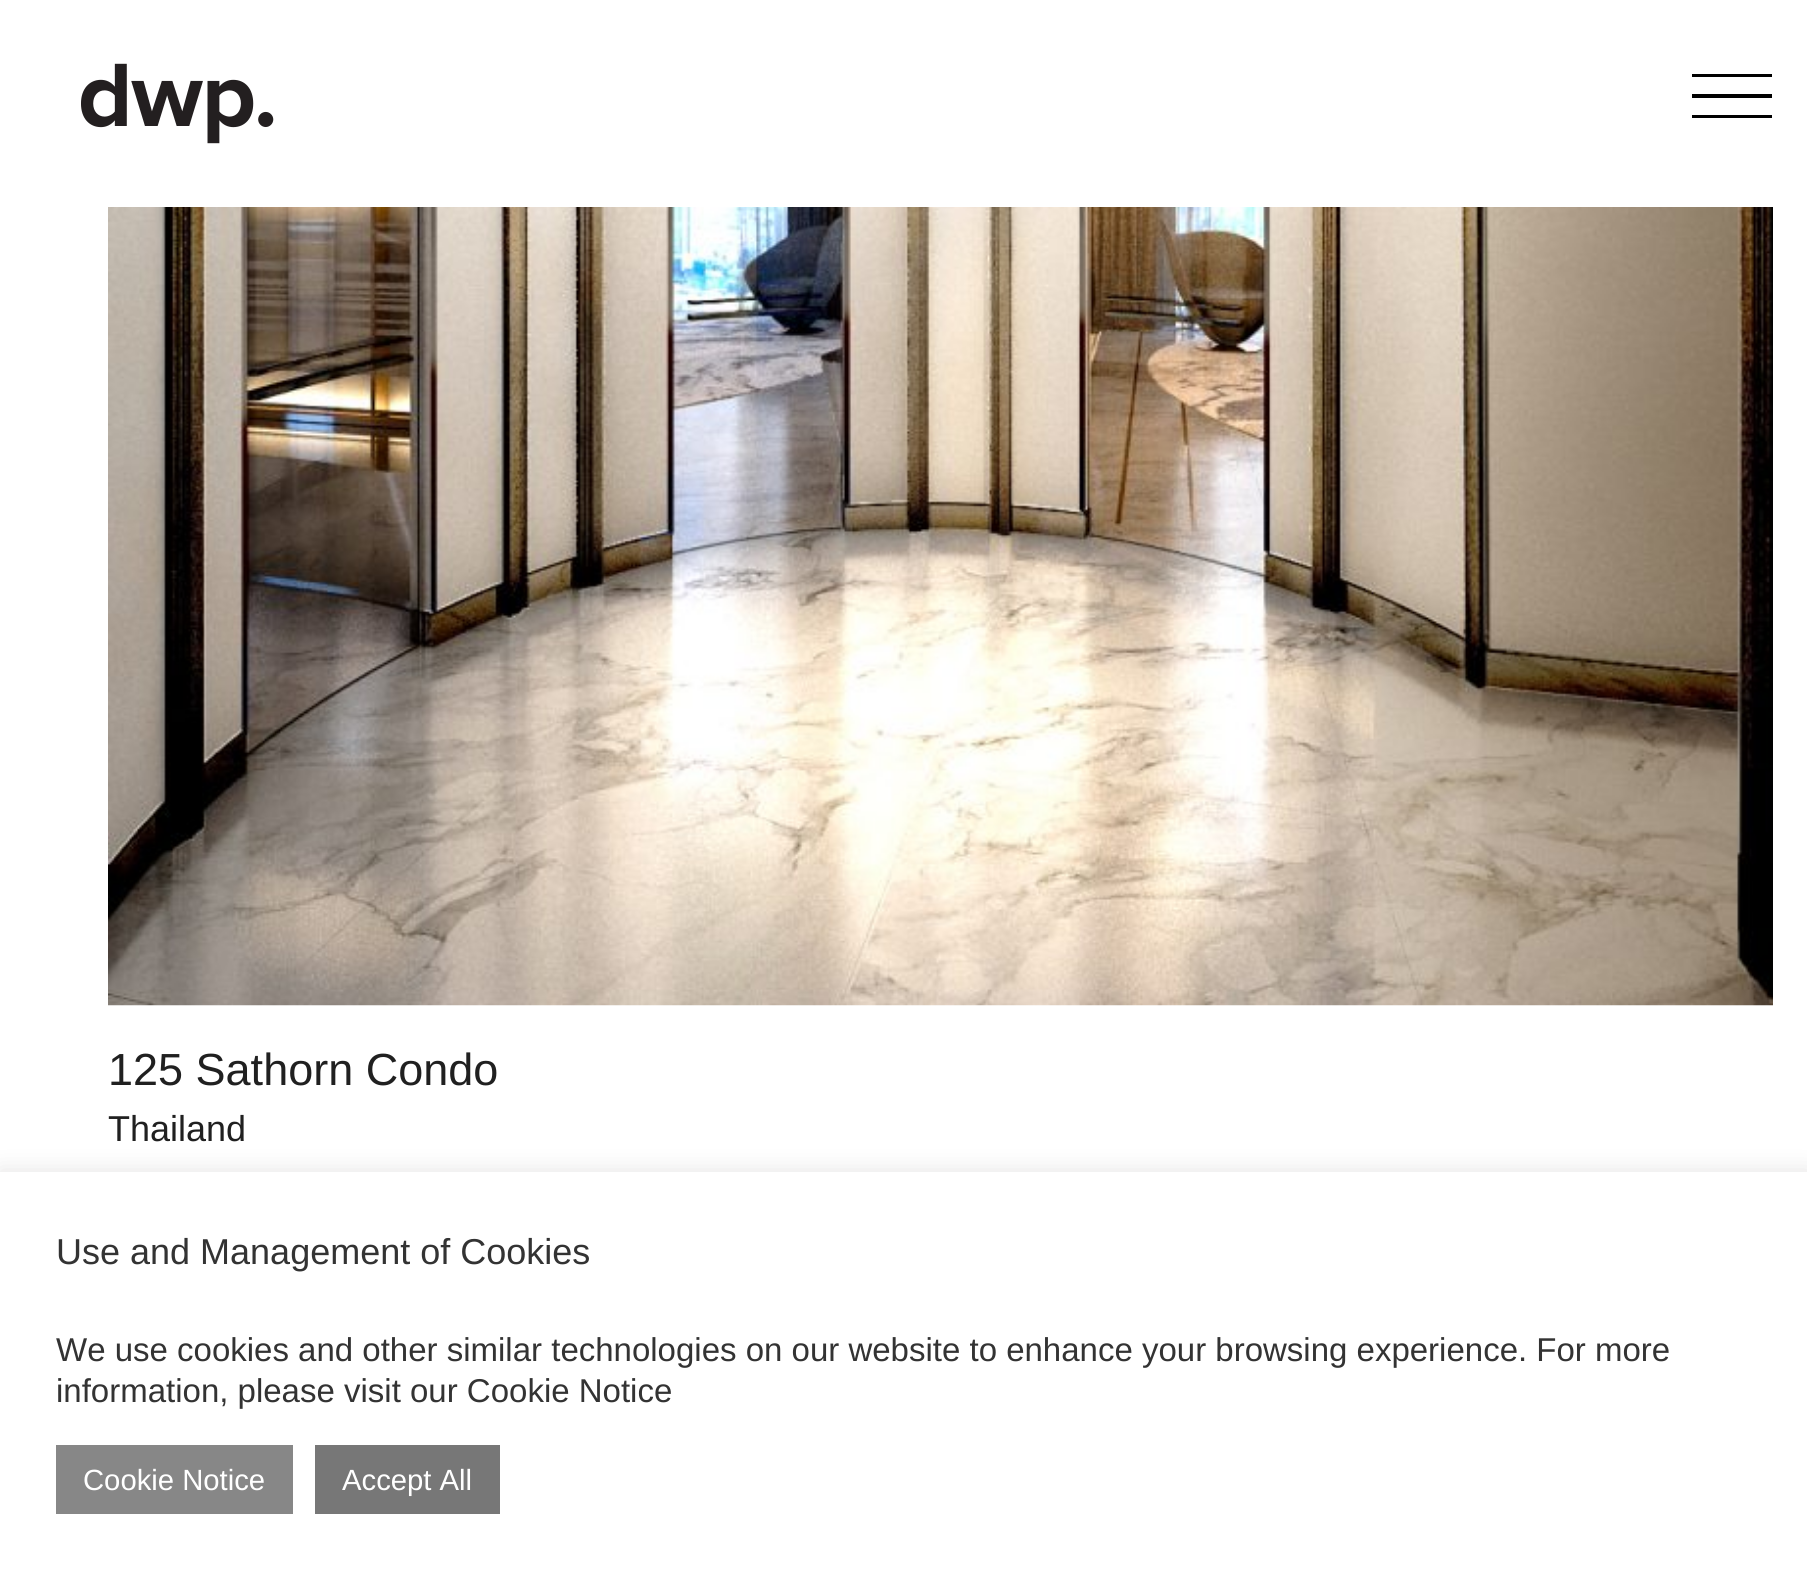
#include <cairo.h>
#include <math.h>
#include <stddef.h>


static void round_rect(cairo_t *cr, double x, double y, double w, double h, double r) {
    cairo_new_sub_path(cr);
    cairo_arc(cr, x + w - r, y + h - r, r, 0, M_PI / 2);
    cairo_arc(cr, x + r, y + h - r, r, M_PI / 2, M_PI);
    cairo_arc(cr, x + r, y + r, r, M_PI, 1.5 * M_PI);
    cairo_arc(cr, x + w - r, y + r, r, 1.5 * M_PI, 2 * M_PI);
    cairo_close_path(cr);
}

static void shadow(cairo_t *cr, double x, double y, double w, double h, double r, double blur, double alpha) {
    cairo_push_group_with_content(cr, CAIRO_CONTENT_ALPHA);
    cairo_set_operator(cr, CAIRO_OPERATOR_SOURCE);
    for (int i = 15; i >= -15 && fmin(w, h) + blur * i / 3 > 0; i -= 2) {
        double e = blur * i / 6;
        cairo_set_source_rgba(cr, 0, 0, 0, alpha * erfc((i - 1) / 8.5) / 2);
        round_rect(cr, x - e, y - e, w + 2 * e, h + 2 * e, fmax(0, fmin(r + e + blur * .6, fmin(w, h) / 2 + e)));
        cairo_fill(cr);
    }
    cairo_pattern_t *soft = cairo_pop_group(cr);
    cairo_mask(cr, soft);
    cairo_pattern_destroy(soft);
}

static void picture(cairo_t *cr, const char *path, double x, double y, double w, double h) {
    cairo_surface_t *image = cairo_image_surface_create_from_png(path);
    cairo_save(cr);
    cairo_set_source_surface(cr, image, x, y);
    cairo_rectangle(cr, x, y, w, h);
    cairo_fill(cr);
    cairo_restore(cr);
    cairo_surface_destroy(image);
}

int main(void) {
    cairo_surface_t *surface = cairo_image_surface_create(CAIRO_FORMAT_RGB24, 1807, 1581);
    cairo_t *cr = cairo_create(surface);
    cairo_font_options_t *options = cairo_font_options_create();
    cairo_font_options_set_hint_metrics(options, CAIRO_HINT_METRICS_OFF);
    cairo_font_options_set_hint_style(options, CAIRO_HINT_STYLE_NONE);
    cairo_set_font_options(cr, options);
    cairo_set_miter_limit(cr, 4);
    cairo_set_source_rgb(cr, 1, 1, 1);
    cairo_paint(cr);
    picture(cr, "img1.png", 81, 63, 193, 81);
    cairo_set_source_rgb(cr, 0, 0, 0);
    cairo_rectangle(cr, 1692, 74, 80, 3);
    cairo_fill(cr);
    cairo_rectangle(cr, 1692, 94, 80, 4);
    cairo_fill(cr);
    cairo_rectangle(cr, 1692, 115, 80, 3);
    cairo_fill(cr);
    picture(cr, "img2.png", 108, 207, 1665, 799);
    cairo_select_font_face(cr, "Liberation Sans", CAIRO_FONT_SLANT_NORMAL, CAIRO_FONT_WEIGHT_NORMAL);
    cairo_set_font_size(cr, 45);
    cairo_set_source_rgb(cr, 0.125, 0.125, 0.125);
    cairo_move_to(cr, 108, 1085);
    cairo_show_text(cr, "125 Sathorn Condo");
    cairo_set_font_size(cr, 36);
    cairo_move_to(cr, 108, 1141);
    cairo_show_text(cr, "Thailand");
    cairo_set_source_rgb(cr, 0.675, 0.671, 0.671);
    shadow(cr, 0, 1170, 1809, 410, 0, 11, 0.3);
    cairo_set_source_rgb(cr, 1, 1, 1);
    cairo_rectangle(cr, 0, 1172, 1807, 409);
    cairo_fill(cr);
    cairo_set_source_rgb(cr, 0.2, 0.2, 0.2);
    cairo_move_to(cr, 56, 1264);
    cairo_show_text(cr, "Use and Management of Cookies");
    cairo_set_font_size(cr, 33);
    cairo_move_to(cr, 56, 1361);
    cairo_show_text(cr, "We use cookies and other similar technologies on our website to enhance your browsing experience. For more");
    cairo_move_to(cr, 56, 1402);
    cairo_show_text(cr, "information, please visit our Cookie Notice");
    cairo_set_source_rgb(cr, 0.529, 0.529, 0.529);
    cairo_rectangle(cr, 56, 1445, 237, 69);
    cairo_fill(cr);
    cairo_set_font_size(cr, 29.25);
    cairo_set_source_rgb(cr, 1, 1, 1);
    cairo_move_to(cr, 83, 1490);
    cairo_show_text(cr, "Cookie Notice");
    cairo_set_source_rgb(cr, 0.467, 0.467, 0.467);
    cairo_rectangle(cr, 315, 1445, 185, 69);
    cairo_fill(cr);
    cairo_set_source_rgb(cr, 1, 1, 1);
    cairo_move_to(cr, 342, 1490);
    cairo_show_text(cr, "Accept All");
    cairo_surface_write_to_png(surface, "page.png");
    cairo_font_options_destroy(options);
    cairo_destroy(cr);
    cairo_surface_destroy(surface);
    return 0;
}
